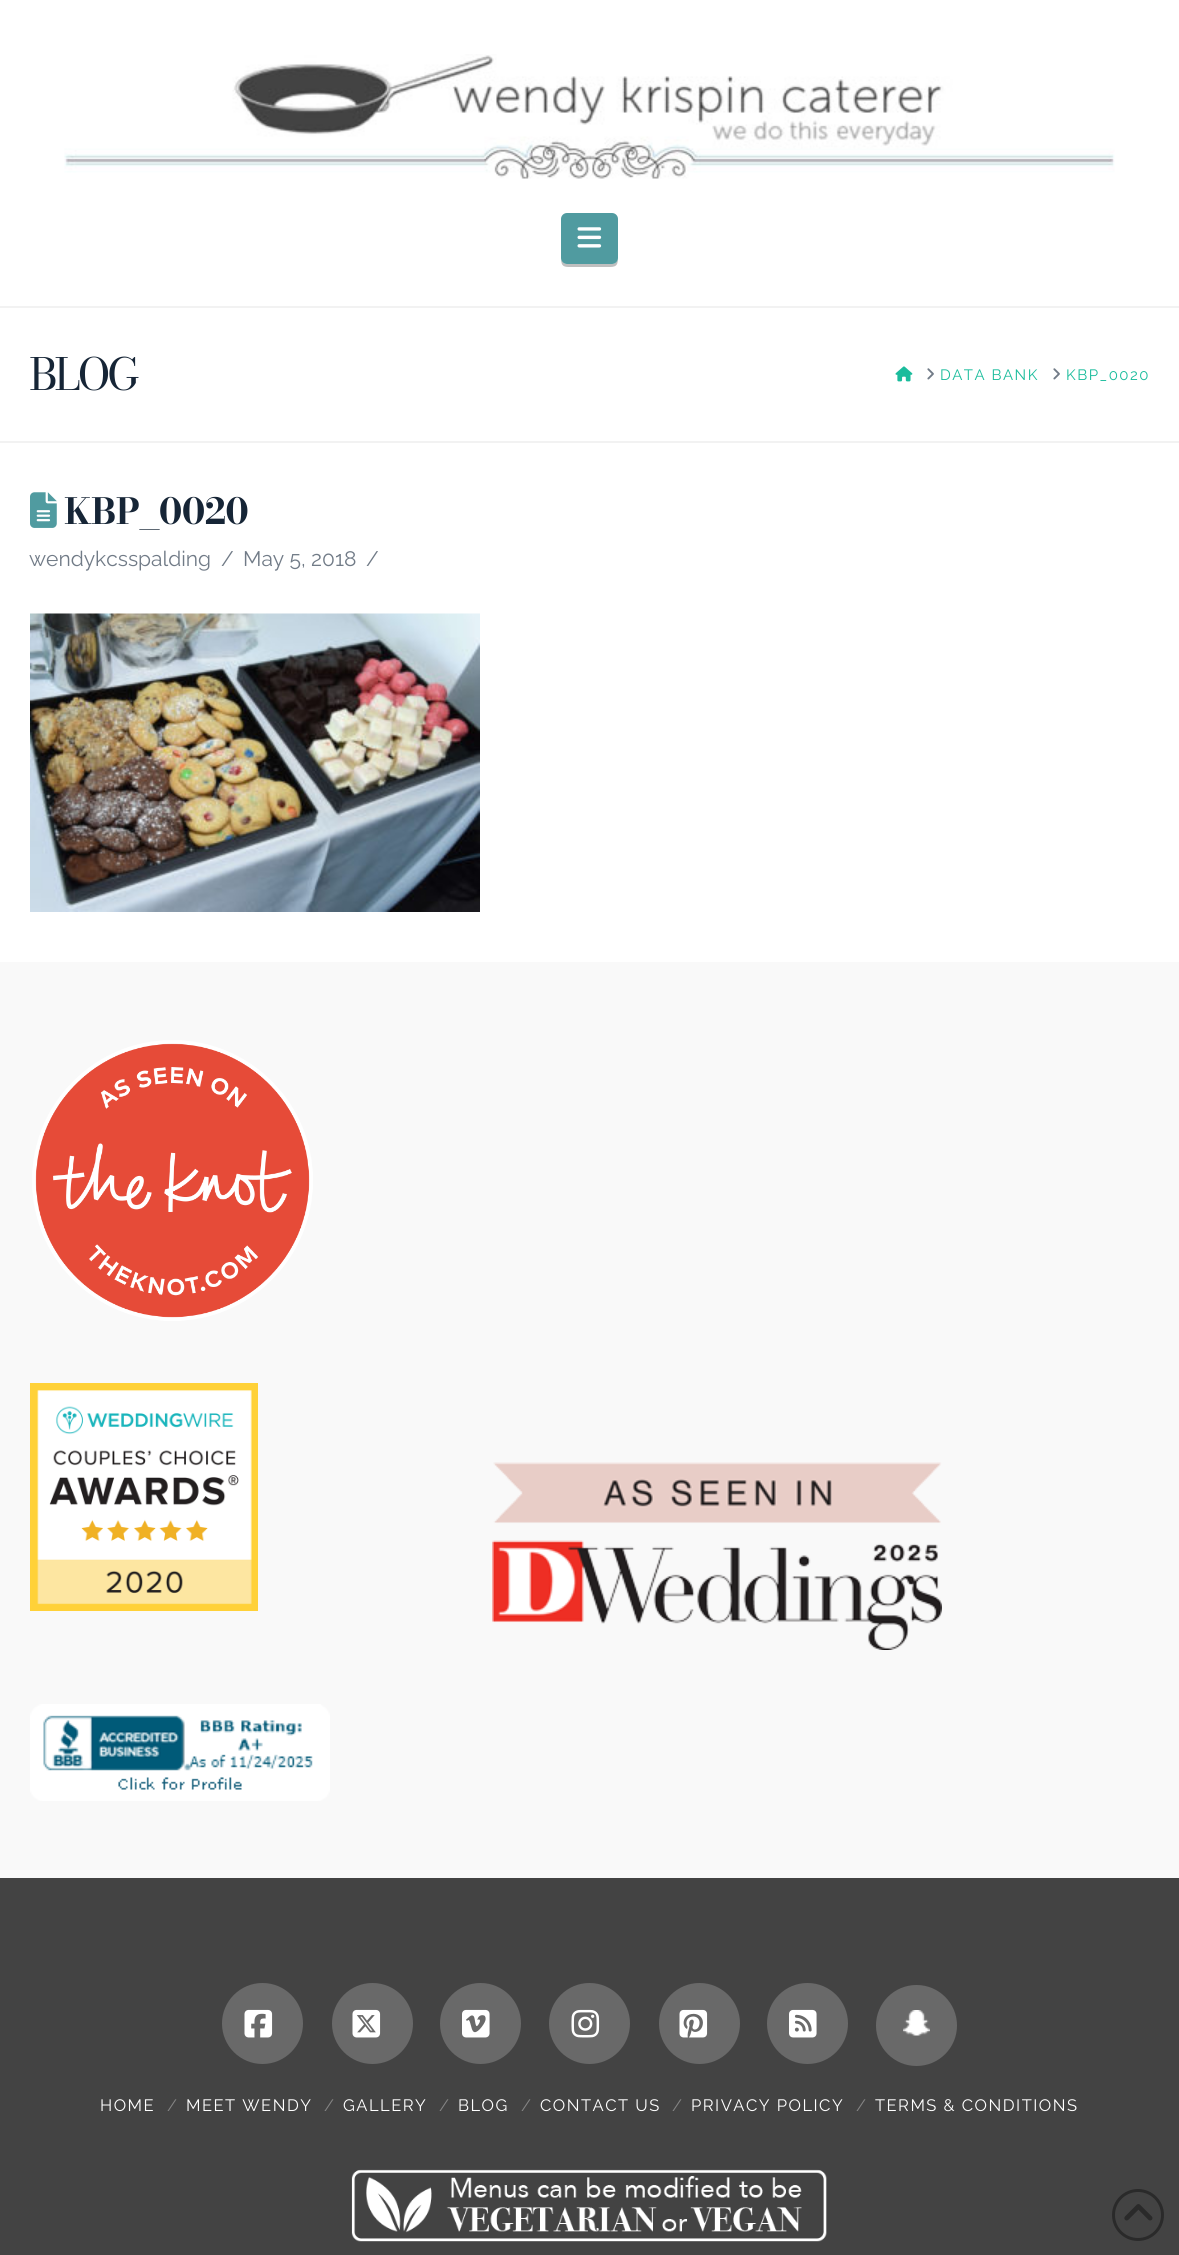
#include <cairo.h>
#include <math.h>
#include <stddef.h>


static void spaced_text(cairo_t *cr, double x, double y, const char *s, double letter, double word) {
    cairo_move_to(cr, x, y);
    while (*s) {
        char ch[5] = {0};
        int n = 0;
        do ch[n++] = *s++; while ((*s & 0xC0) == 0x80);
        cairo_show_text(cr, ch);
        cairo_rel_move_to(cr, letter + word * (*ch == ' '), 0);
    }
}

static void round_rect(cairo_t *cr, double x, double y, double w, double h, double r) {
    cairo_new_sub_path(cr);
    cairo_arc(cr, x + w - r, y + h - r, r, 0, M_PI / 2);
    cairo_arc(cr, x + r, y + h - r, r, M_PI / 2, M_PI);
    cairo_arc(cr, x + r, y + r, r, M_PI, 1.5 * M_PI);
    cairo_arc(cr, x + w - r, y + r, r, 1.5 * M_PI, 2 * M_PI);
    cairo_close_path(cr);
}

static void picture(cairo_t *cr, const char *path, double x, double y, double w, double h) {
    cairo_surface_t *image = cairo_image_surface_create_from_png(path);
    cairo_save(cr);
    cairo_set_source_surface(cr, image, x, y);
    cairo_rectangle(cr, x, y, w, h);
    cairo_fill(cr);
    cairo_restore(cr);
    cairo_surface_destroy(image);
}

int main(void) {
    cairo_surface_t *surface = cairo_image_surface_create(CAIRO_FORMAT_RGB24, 1179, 2255);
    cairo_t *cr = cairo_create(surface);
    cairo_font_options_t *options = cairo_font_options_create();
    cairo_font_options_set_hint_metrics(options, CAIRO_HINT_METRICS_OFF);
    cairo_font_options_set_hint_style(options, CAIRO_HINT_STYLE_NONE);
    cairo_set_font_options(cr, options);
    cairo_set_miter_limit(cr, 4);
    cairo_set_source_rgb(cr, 1, 1, 1);
    cairo_paint(cr);
    picture(cr, "img1.png", 64, 54, 1051, 125);
    cairo_set_source_rgb(cr, 0.749, 0.749, 0.749);
    cairo_new_path(cr);
    cairo_move_to(cr, 561, 258);
    cairo_curve_to(cr, 561, 268, 565, 267, 574, 267);
    cairo_line_to(cr, 604, 267);
    cairo_curve_to(cr, 614, 267, 618, 268, 618, 258);
    cairo_curve_to(cr, 618, 261, 615, 264, 612, 264);
    cairo_line_to(cr, 567, 264);
    cairo_curve_to(cr, 564, 264, 561, 261, 561, 258);
    cairo_close_path(cr);
    cairo_fill(cr);
    cairo_set_source_rgb(cr, 0.314, 0.608, 0.627);
    round_rect(cr, 561, 213, 57, 51, 6);
    cairo_fill(cr);
    picture(cr, "img2.png", 577, 227, 25, 21);
    cairo_set_source_rgb(cr, 0.949, 0.949, 0.949);
    cairo_rectangle(cr, 0, 306, 1179, 2);
    cairo_fill(cr);
    cairo_rectangle(cr, 0, 441, 1179, 2);
    cairo_fill(cr);
    cairo_select_font_face(cr, "Bodoni Moda", CAIRO_FONT_SLANT_NORMAL, CAIRO_FONT_WEIGHT_NORMAL);
    cairo_set_font_size(cr, 44);
    cairo_set_source_rgb(cr, 0.086, 0.145, 0.212);
    spaced_text(cr, 29, 390, "BLOG", -3.5, 0);
    picture(cr, "img3.png", 895, 366, 18, 16);
    picture(cr, "img4.png", 927, 368, 7, 12);
    cairo_select_font_face(cr, "Raleway", CAIRO_FONT_SLANT_NORMAL, CAIRO_FONT_WEIGHT_NORMAL);
    cairo_set_font_size(cr, 15);
    cairo_set_source_rgb(cr, 0.102, 0.737, 0.612);
    spaced_text(cr, 940, 380, "DATA BANK", 1.5, 0);
    picture(cr, "img4.png", 1053, 368, 7, 12);
    spaced_text(cr, 1066, 380, "KBP_0020", 1.5, 0);
    picture(cr, "img5.png", 30, 492, 27, 36);
    cairo_select_font_face(cr, "Bodoni Moda", CAIRO_FONT_SLANT_NORMAL, CAIRO_FONT_WEIGHT_BOLD);
    cairo_set_font_size(cr, 35.75);
    cairo_set_source_rgb(cr, 0.086, 0.145, 0.212);
    spaced_text(cr, 64, 524, "KBP_0020", -0.75, 0);
    cairo_select_font_face(cr, "Raleway", CAIRO_FONT_SLANT_NORMAL, CAIRO_FONT_WEIGHT_NORMAL);
    cairo_set_font_size(cr, 21);
    cairo_set_source_rgb(cr, 0.443, 0.482, 0.529);
    cairo_move_to(cr, 29, 566);
    cairo_show_text(cr, "wendykcsspalding");
    cairo_move_to(cr, 221, 566);
    cairo_show_text(cr, "/");
    cairo_move_to(cr, 243, 566);
    cairo_show_text(cr, "May 5, 2018");
    cairo_move_to(cr, 366, 566);
    cairo_show_text(cr, "/");
    picture(cr, "img6.png", 30, 613, 450, 299);
    cairo_set_source_rgb(cr, 0.976, 0.976, 0.976);
    cairo_rectangle(cr, 0, 962, 1179, 916);
    cairo_fill(cr);
    picture(cr, "img7.png", 32, 1040, 281, 281);
    picture(cr, "img8.png", 30, 1383, 228, 228);
    picture(cr, "img9.png", 492, 1462, 450, 188);
    picture(cr, "img10.png", 30, 1704, 300, 97);
    cairo_set_source_rgb(cr, 0.263, 0.263, 0.263);
    cairo_rectangle(cr, 0, 1878, 1179, 377);
    cairo_fill(cr);
    cairo_set_source_rgb(cr, 0.412, 0.412, 0.412);
    cairo_arc(cr, 262.5, 2023.5, 40.5, 0, 2 * M_PI);
    cairo_fill(cr);
    picture(cr, "img11.png", 244, 2009, 29, 29);
    cairo_arc(cr, 372.5, 2023.5, 40.5, 0, 2 * M_PI);
    cairo_fill(cr);
    picture(cr, "img12.png", 352, 2009, 29, 29);
    cairo_arc(cr, 480.5, 2023.5, 40.5, 0, 2 * M_PI);
    cairo_fill(cr);
    picture(cr, "img13.png", 462, 2009, 28, 29);
    cairo_arc(cr, 589.5, 2023.5, 40.5, 0, 2 * M_PI);
    cairo_fill(cr);
    picture(cr, "img14.png", 571, 2009, 29, 29);
    cairo_arc(cr, 699.5, 2023.5, 40.5, 0, 2 * M_PI);
    cairo_fill(cr);
    picture(cr, "img15.png", 679, 2009, 29, 29);
    cairo_arc(cr, 807.5, 2023.5, 40.5, 0, 2 * M_PI);
    cairo_fill(cr);
    picture(cr, "img16.png", 789, 2009, 28, 29);
    cairo_arc(cr, 916.5, 2025.5, 40.5, 0, 2 * M_PI);
    cairo_fill(cr);
    picture(cr, "img17.png", 903, 2010, 27, 26);
    cairo_set_font_size(cr, 16.5);
    cairo_set_source_rgb(cr, 1, 1, 1);
    spaced_text(cr, 100, 2111, "HOME", 1.5, 0);
    cairo_set_source_rgb(cr, 0.522, 0.522, 0.522);
    cairo_move_to(cr, 167, 2111);
    cairo_show_text(cr, "/");
    cairo_set_source_rgb(cr, 1, 1, 1);
    spaced_text(cr, 186, 2111, "MEET WENDY", 1.5, 0);
    cairo_set_source_rgb(cr, 0.522, 0.522, 0.522);
    cairo_move_to(cr, 324, 2111);
    cairo_show_text(cr, "/");
    cairo_set_source_rgb(cr, 1, 1, 1);
    spaced_text(cr, 343, 2111, "GALLERY", 1.5, 0);
    cairo_set_source_rgb(cr, 0.522, 0.522, 0.522);
    cairo_move_to(cr, 439, 2111);
    cairo_show_text(cr, "/");
    cairo_set_source_rgb(cr, 1, 1, 1);
    spaced_text(cr, 458, 2111, "BLOG", 1.5, 0);
    cairo_set_source_rgb(cr, 0.522, 0.522, 0.522);
    cairo_move_to(cr, 521, 2111);
    cairo_show_text(cr, "/");
    cairo_set_source_rgb(cr, 1, 1, 1);
    spaced_text(cr, 540, 2111, "CONTACT US", 1.5, 0);
    cairo_set_source_rgb(cr, 0.522, 0.522, 0.522);
    cairo_move_to(cr, 672, 2111);
    cairo_show_text(cr, "/");
    cairo_set_source_rgb(cr, 1, 1, 1);
    spaced_text(cr, 691, 2111, "PRIVACY POLICY", 1.5, 0);
    cairo_set_source_rgb(cr, 0.522, 0.522, 0.522);
    cairo_move_to(cr, 856, 2111);
    cairo_show_text(cr, "/");
    cairo_set_source_rgb(cr, 1, 1, 1);
    spaced_text(cr, 875, 2111, "TERMS & CONDITIONS", 1.5, 0);
    picture(cr, "img18.png", 351, 2169, 476, 73);
    cairo_arc(cr, 1138, 2215, 24.5, 0, 2 * M_PI);
    cairo_set_source_rgb(cr, 0.165, 0.165, 0.165);
    cairo_set_line_width(cr, 3);
    cairo_stroke(cr);
    picture(cr, "img19.png", 1124, 2204, 29, 17);
    cairo_surface_write_to_png(surface, "page.png");
    cairo_font_options_destroy(options);
    cairo_destroy(cr);
    cairo_surface_destroy(surface);
    return 0;
}
